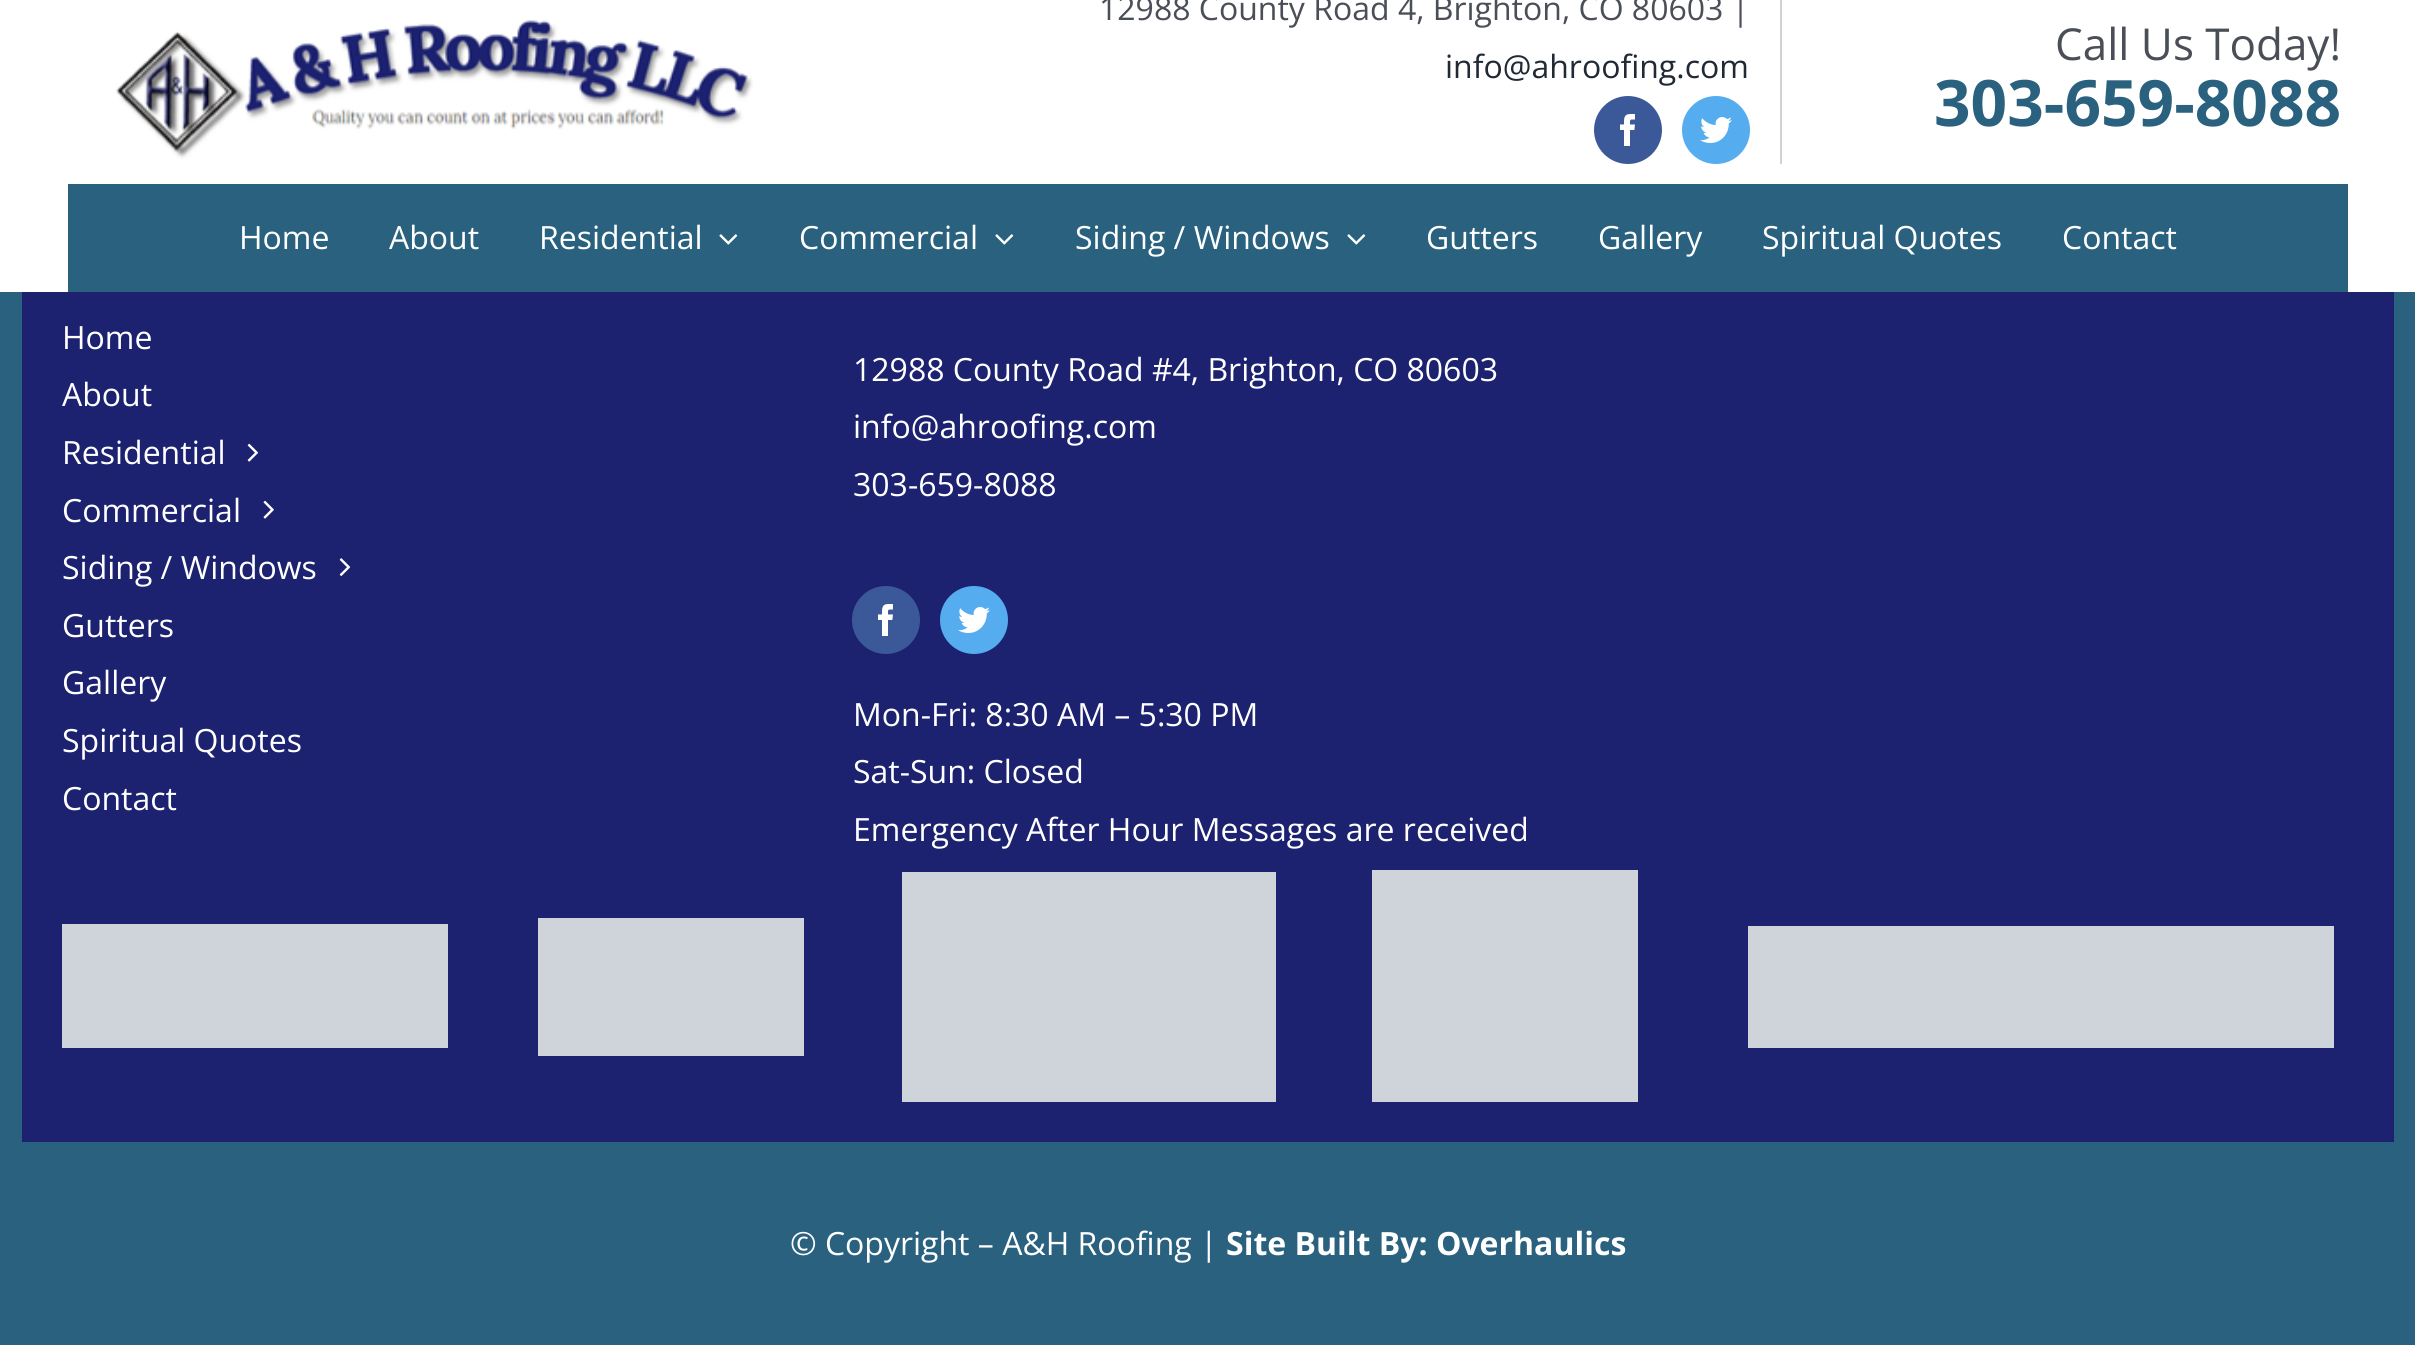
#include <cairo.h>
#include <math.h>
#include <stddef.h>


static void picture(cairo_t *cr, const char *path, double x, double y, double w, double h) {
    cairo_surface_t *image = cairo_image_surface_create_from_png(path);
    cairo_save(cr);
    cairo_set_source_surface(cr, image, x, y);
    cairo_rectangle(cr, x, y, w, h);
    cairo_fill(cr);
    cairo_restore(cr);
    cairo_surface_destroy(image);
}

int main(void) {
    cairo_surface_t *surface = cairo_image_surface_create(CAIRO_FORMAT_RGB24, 2415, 1345);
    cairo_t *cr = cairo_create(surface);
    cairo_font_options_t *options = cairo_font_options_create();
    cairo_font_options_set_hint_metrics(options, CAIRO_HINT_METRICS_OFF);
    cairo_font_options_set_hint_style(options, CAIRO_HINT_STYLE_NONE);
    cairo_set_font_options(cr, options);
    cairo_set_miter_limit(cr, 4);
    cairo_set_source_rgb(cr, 0.161, 0.38, 0.498);
    cairo_paint(cr);
    cairo_set_source_rgb(cr, 1, 1, 1);
    cairo_rectangle(cr, 0, 0, 2415, 292);
    cairo_fill(cr);
    picture(cr, "img1.png", 116, 20, 637, 139);
    cairo_set_source_rgb(cr, 0.82, 0.82, 0.82);
    cairo_rectangle(cr, 1780, 0, 2, 164);
    cairo_fill(cr);
    cairo_select_font_face(cr, "Open Sans", CAIRO_FONT_SLANT_NORMAL, CAIRO_FONT_WEIGHT_NORMAL);
    cairo_set_font_size(cr, 32);
    cairo_set_source_rgb(cr, 0.29, 0.306, 0.341);
    cairo_move_to(cr, 1099, 20);
    cairo_show_text(cr, "12988 County Road 4, Brighton, CO 80603 |");
    cairo_set_source_rgb(cr, 0.129, 0.161, 0.204);
    cairo_move_to(cr, 1445, 78);
    cairo_show_text(cr, "info@ahroofing.com");
    cairo_set_source_rgb(cr, 0.231, 0.349, 0.596);
    cairo_new_path(cr);
    cairo_arc(cr, 1628, 130, 33, 0, 2 * M_PI);
    cairo_fill_preserve(cr);
    cairo_stroke(cr);
    picture(cr, "img2.png", 1620, 114, 15, 32);
    cairo_set_source_rgb(cr, 0.333, 0.675, 0.933);
    cairo_arc(cr, 1716, 130, 33, 0, 2 * M_PI);
    cairo_fill_preserve(cr);
    cairo_stroke(cr);
    picture(cr, "img3.png", 1700, 117, 32, 26);
    cairo_set_font_size(cr, 44);
    cairo_set_source_rgb(cr, 0.29, 0.306, 0.341);
    cairo_move_to(cr, 2055, 60);
    cairo_show_text(cr, "Call Us Today!");
    cairo_select_font_face(cr, "Open Sans", CAIRO_FONT_SLANT_NORMAL, CAIRO_FONT_WEIGHT_BOLD);
    cairo_set_font_size(cr, 64);
    cairo_set_source_rgb(cr, 0.161, 0.38, 0.498);
    cairo_move_to(cr, 1934, 126);
    cairo_show_text(cr, "303-659-8088");
    cairo_rectangle(cr, 68, 184, 2280, 108);
    cairo_fill(cr);
    cairo_select_font_face(cr, "Open Sans", CAIRO_FONT_SLANT_NORMAL, CAIRO_FONT_WEIGHT_NORMAL);
    cairo_set_font_size(cr, 32);
    cairo_set_source_rgb(cr, 1, 1, 1);
    cairo_move_to(cr, 239, 249);
    cairo_show_text(cr, "Home");
    cairo_move_to(cr, 389, 249);
    cairo_show_text(cr, "About");
    cairo_move_to(cr, 539, 249);
    cairo_show_text(cr, "Residential");
    picture(cr, "img4.png", 719, 234, 19, 11);
    cairo_move_to(cr, 799, 249);
    cairo_show_text(cr, "Commercial");
    picture(cr, "img4.png", 995, 234, 19, 11);
    cairo_move_to(cr, 1075, 249);
    cairo_show_text(cr, "Siding / Windows");
    picture(cr, "img4.png", 1347, 234, 19, 11);
    cairo_move_to(cr, 1426, 249);
    cairo_show_text(cr, "Gutters");
    cairo_move_to(cr, 1598, 249);
    cairo_show_text(cr, "Gallery");
    cairo_move_to(cr, 1762, 249);
    cairo_show_text(cr, "Spiritual Quotes");
    cairo_move_to(cr, 2062, 249);
    cairo_show_text(cr, "Contact");
    cairo_set_source_rgb(cr, 0.11, 0.133, 0.439);
    cairo_rectangle(cr, 22, 292, 2372, 850);
    cairo_fill(cr);
    cairo_set_source_rgb(cr, 1, 1, 1);
    cairo_move_to(cr, 62, 349);
    cairo_show_text(cr, "Home");
    cairo_move_to(cr, 62, 406);
    cairo_show_text(cr, "About");
    cairo_move_to(cr, 62, 464);
    cairo_show_text(cr, "Residential");
    picture(cr, "img5.png", 247, 443, 12, 19);
    cairo_move_to(cr, 62, 522);
    cairo_show_text(cr, "Commercial");
    picture(cr, "img6.png", 263, 500, 11, 19);
    cairo_move_to(cr, 62, 579);
    cairo_show_text(cr, "Siding / Windows");
    picture(cr, "img7.png", 339, 558, 12, 18);
    cairo_move_to(cr, 62, 637);
    cairo_show_text(cr, "Gutters");
    cairo_move_to(cr, 62, 694);
    cairo_show_text(cr, "Gallery");
    cairo_move_to(cr, 62, 752);
    cairo_show_text(cr, "Spiritual Quotes");
    cairo_move_to(cr, 62, 810);
    cairo_show_text(cr, "Contact");
    cairo_move_to(cr, 853, 381);
    cairo_show_text(cr, "12988 County Road #4, Brighton, CO 80603");
    cairo_move_to(cr, 853, 438);
    cairo_show_text(cr, "info@ahroofing.com");
    cairo_move_to(cr, 853, 496);
    cairo_show_text(cr, "303-659-8088");
    cairo_set_source_rgb(cr, 0.231, 0.349, 0.596);
    cairo_new_path(cr);
    cairo_arc(cr, 886, 620, 33, 0, 2 * M_PI);
    cairo_fill_preserve(cr);
    cairo_stroke(cr);
    picture(cr, "img2.png", 878, 604, 15, 32);
    cairo_set_source_rgb(cr, 0.333, 0.675, 0.933);
    cairo_arc(cr, 974, 620, 33, 0, 2 * M_PI);
    cairo_fill_preserve(cr);
    cairo_stroke(cr);
    picture(cr, "img3.png", 958, 607, 32, 26);
    cairo_set_source_rgb(cr, 1, 1, 1);
    cairo_move_to(cr, 853, 726);
    cairo_show_text(cr, "Mon-Fri: 8:30 AM – 5:30 PM");
    cairo_move_to(cr, 853, 783);
    cairo_show_text(cr, "Sat-Sun: Closed");
    cairo_move_to(cr, 853, 841);
    cairo_show_text(cr, "Emergency After Hour Messages are received");
    cairo_set_source_rgb(cr, 0.812, 0.831, 0.859);
    cairo_rectangle(cr, 62, 924, 386, 124);
    cairo_fill(cr);
    cairo_rectangle(cr, 538, 918, 266, 138);
    cairo_fill(cr);
    cairo_rectangle(cr, 902, 872, 374, 230);
    cairo_fill(cr);
    cairo_rectangle(cr, 1372, 870, 266, 232);
    cairo_fill(cr);
    cairo_rectangle(cr, 1748, 926, 586, 122);
    cairo_fill(cr);
    cairo_set_source_rgb(cr, 1, 1, 1);
    cairo_move_to(cr, 790, 1255);
    cairo_show_text(cr, "© Copyright – A&H Roofing |");
    cairo_select_font_face(cr, "Open Sans", CAIRO_FONT_SLANT_NORMAL, CAIRO_FONT_WEIGHT_BOLD);
    cairo_move_to(cr, 1226, 1255);
    cairo_show_text(cr, "Site Built By: Overhaulics");
    cairo_surface_write_to_png(surface, "page.png");
    cairo_font_options_destroy(options);
    cairo_destroy(cr);
    cairo_surface_destroy(surface);
    return 0;
}
